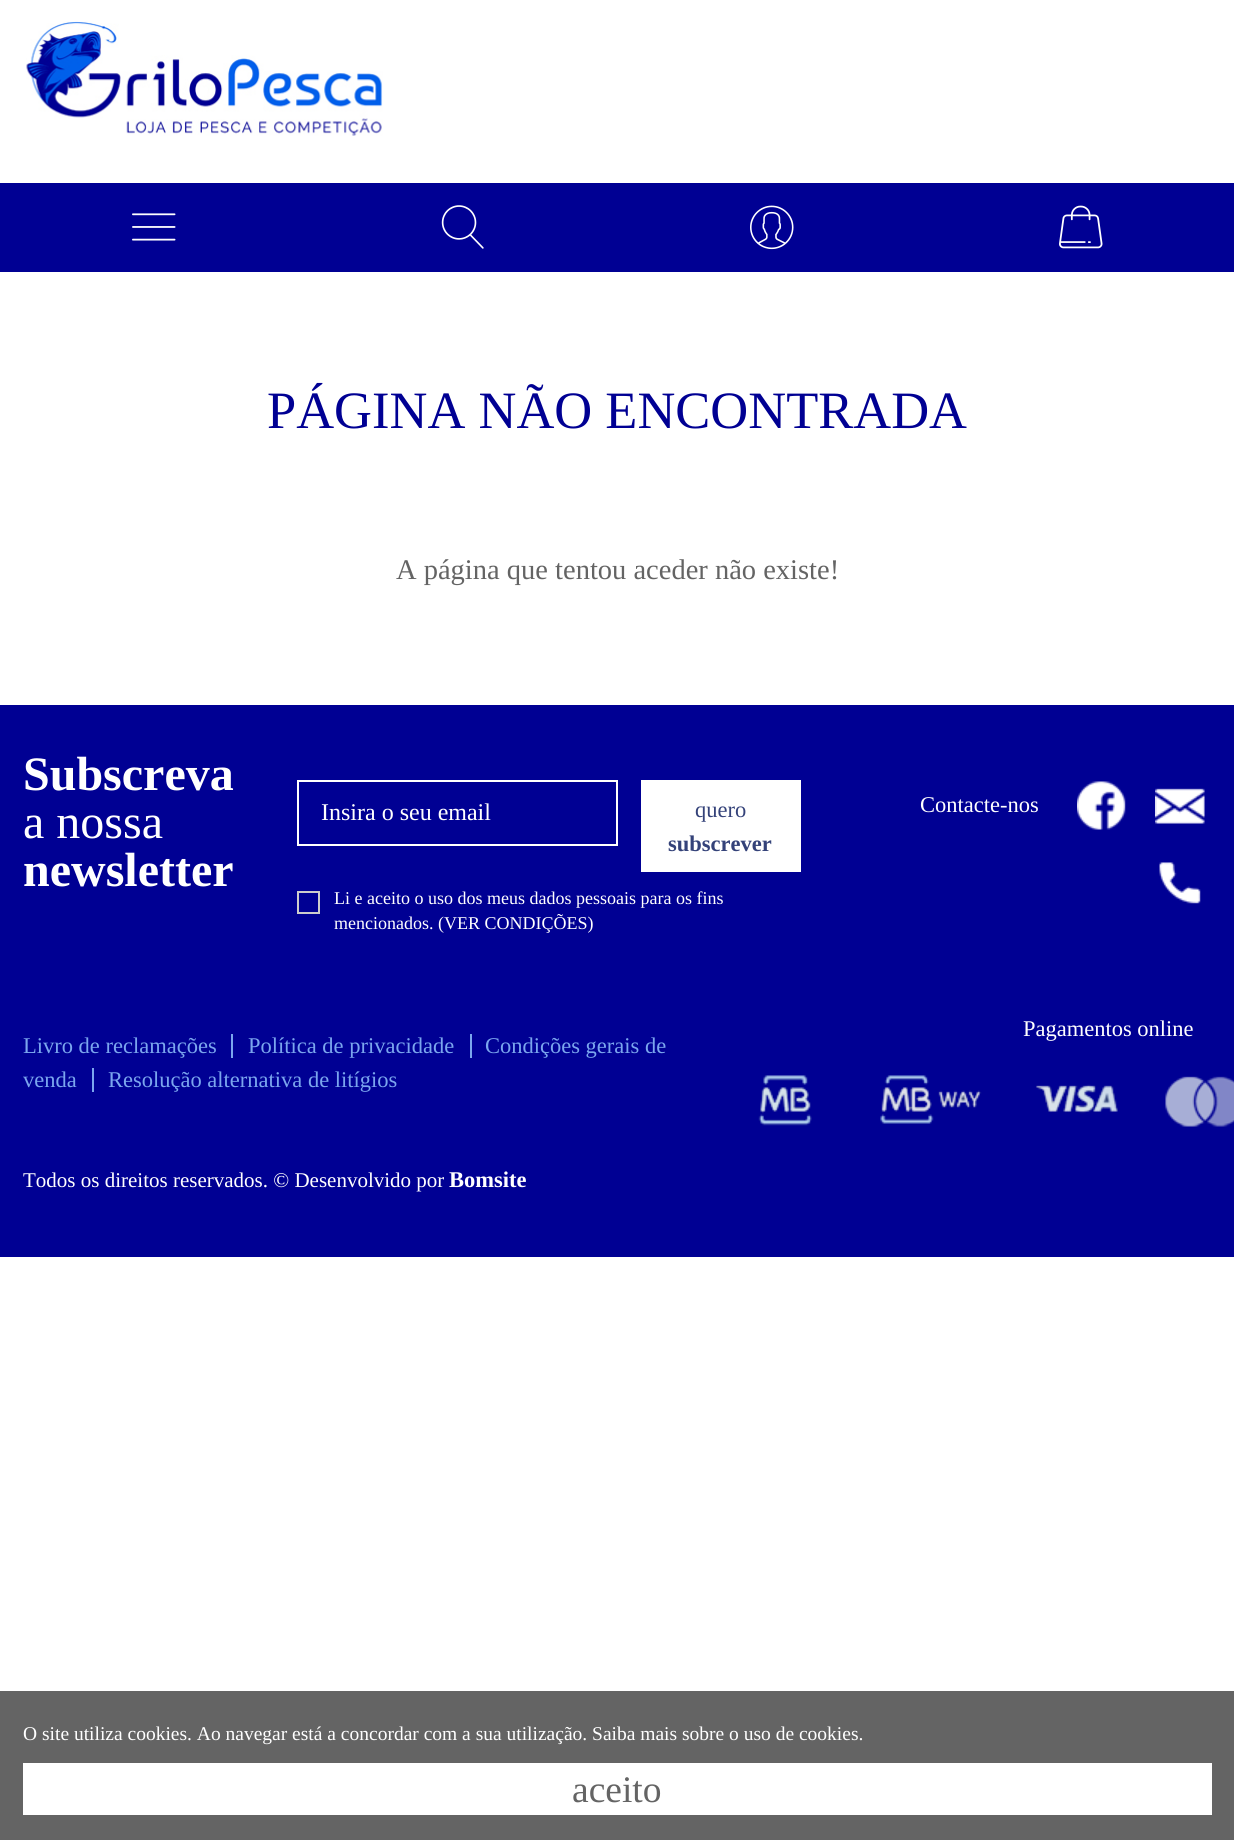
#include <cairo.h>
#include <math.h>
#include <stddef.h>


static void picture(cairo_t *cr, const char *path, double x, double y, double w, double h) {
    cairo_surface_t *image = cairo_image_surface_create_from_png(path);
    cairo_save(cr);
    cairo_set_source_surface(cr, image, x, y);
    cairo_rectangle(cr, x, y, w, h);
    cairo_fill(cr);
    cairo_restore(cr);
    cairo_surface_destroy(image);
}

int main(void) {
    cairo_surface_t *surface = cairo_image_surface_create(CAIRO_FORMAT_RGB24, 1234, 1840);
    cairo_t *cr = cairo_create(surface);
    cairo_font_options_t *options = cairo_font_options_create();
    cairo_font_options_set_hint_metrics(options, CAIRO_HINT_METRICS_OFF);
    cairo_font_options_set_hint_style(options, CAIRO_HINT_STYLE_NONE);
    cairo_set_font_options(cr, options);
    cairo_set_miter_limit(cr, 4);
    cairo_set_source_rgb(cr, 1, 1, 1);
    cairo_paint(cr);
    picture(cr, "img1.png", 26, 21, 357, 115);
    cairo_set_source_rgb(cr, 0, 0, 0.576);
    cairo_rectangle(cr, 0, 183, 1234, 89);
    cairo_fill(cr);
    picture(cr, "img2.png", 132, 213, 44, 28);
    picture(cr, "img3.png", 441, 205, 43, 44);
    picture(cr, "img4.png", 750, 205, 44, 45);
    picture(cr, "img5.png", 1059, 205, 44, 44);
    cairo_select_font_face(cr, "Liberation Serif", CAIRO_FONT_SLANT_NORMAL, CAIRO_FONT_WEIGHT_NORMAL);
    cairo_set_font_size(cr, 52.5);
    cairo_move_to(cr, 267, 428);
    cairo_show_text(cr, "PÁGINA NÃO ENCONTRADA");
    cairo_set_font_size(cr, 28.5);
    cairo_set_source_rgb(cr, 0.392, 0.392, 0.392);
    cairo_move_to(cr, 396, 579);
    cairo_show_text(cr, "A página que tentou aceder não existe!");
    cairo_set_source_rgb(cr, 0, 0, 0.576);
    cairo_rectangle(cr, 0, 705, 1234, 552);
    cairo_fill(cr);
    cairo_select_font_face(cr, "Liberation Serif", CAIRO_FONT_SLANT_NORMAL, CAIRO_FONT_WEIGHT_BOLD);
    cairo_set_font_size(cr, 48);
    cairo_set_source_rgb(cr, 1, 1, 1);
    cairo_move_to(cr, 23, 790);
    cairo_show_text(cr, "Subscreva");
    cairo_select_font_face(cr, "Liberation Serif", CAIRO_FONT_SLANT_NORMAL, CAIRO_FONT_WEIGHT_NORMAL);
    cairo_move_to(cr, 23, 838);
    cairo_show_text(cr, "a nossa");
    cairo_select_font_face(cr, "Liberation Serif", CAIRO_FONT_SLANT_NORMAL, CAIRO_FONT_WEIGHT_BOLD);
    cairo_move_to(cr, 23, 886);
    cairo_show_text(cr, "newsletter");
    cairo_rectangle(cr, 298, 781, 319, 64);
    cairo_stroke(cr);
    cairo_select_font_face(cr, "Liberation Serif", CAIRO_FONT_SLANT_NORMAL, CAIRO_FONT_WEIGHT_NORMAL);
    cairo_set_font_size(cr, 24);
    cairo_move_to(cr, 321, 820);
    cairo_show_text(cr, "Insira o seu email");
    cairo_rectangle(cr, 641, 780, 160, 92);
    cairo_fill(cr);
    cairo_set_font_size(cr, 22.5);
    cairo_set_source_rgb(cr, 0.204, 0.259, 0.475);
    cairo_move_to(cr, 695, 817);
    cairo_show_text(cr, "quero");
    cairo_select_font_face(cr, "Liberation Serif", CAIRO_FONT_SLANT_NORMAL, CAIRO_FONT_WEIGHT_BOLD);
    cairo_move_to(cr, 668, 851);
    cairo_show_text(cr, "subscrever");
    cairo_rectangle(cr, 298, 892, 21, 21);
    cairo_set_source_rgb(cr, 0.8, 0.8, 0.8);
    cairo_stroke(cr);
    cairo_select_font_face(cr, "Liberation Serif", CAIRO_FONT_SLANT_NORMAL, CAIRO_FONT_WEIGHT_NORMAL);
    cairo_set_font_size(cr, 18);
    cairo_set_source_rgb(cr, 1, 1, 1);
    cairo_move_to(cr, 334, 904);
    cairo_show_text(cr, "Li e aceito o uso dos meus dados pessoais para os fins");
    cairo_move_to(cr, 334, 929);
    cairo_show_text(cr, "mencionados. (VER CONDIÇÕES)");
    cairo_set_font_size(cr, 22.5);
    cairo_move_to(cr, 920, 812);
    cairo_show_text(cr, "Contacte-nos");
    picture(cr, "img6.png", 1077, 781, 49, 49);
    picture(cr, "img7.png", 1155, 788, 50, 36);
    picture(cr, "img8.png", 1159, 862, 42, 42);
    cairo_move_to(cr, 1023, 1036);
    cairo_show_text(cr, "Pagamentos online");
    picture(cr, "img9.png", 758, 1075, 476, 52);
    cairo_set_source_rgb(cr, 0.482, 0.651, 0.933);
    cairo_move_to(cr, 23, 1053);
    cairo_show_text(cr, "Livro de reclamações");
    cairo_rectangle(cr, 231, 1034, 2, 24);
    cairo_fill(cr);
    cairo_move_to(cr, 248, 1053);
    cairo_show_text(cr, "Política de privacidade");
    cairo_rectangle(cr, 470, 1034, 2, 24);
    cairo_fill(cr);
    cairo_move_to(cr, 485, 1053);
    cairo_show_text(cr, "Condições gerais de");
    cairo_move_to(cr, 23, 1087);
    cairo_show_text(cr, "venda");
    cairo_rectangle(cr, 92, 1068, 2, 24);
    cairo_fill(cr);
    cairo_move_to(cr, 108, 1087);
    cairo_show_text(cr, "Resolução alternativa de litígios");
    cairo_set_font_size(cr, 21);
    cairo_set_source_rgb(cr, 1, 1, 1);
    cairo_move_to(cr, 23, 1187);
    cairo_show_text(cr, "Todos os direitos reservados. © Desenvolvido por");
    cairo_select_font_face(cr, "Liberation Serif", CAIRO_FONT_SLANT_NORMAL, CAIRO_FONT_WEIGHT_BOLD);
    cairo_set_font_size(cr, 22.5);
    cairo_move_to(cr, 449, 1187);
    cairo_show_text(cr, "Bomsite");
    cairo_set_source_rgb(cr, 0.392, 0.392, 0.392);
    cairo_rectangle(cr, 0, 1691, 1234, 149);
    cairo_fill(cr);
    cairo_select_font_face(cr, "Liberation Serif", CAIRO_FONT_SLANT_NORMAL, CAIRO_FONT_WEIGHT_NORMAL);
    cairo_set_font_size(cr, 19.5);
    cairo_set_source_rgb(cr, 1, 1, 1);
    cairo_move_to(cr, 23, 1740);
    cairo_show_text(cr, "O site utiliza cookies. Ao navegar está a concordar com a sua utilização. Saiba mais sobre o uso de cookies.");
    cairo_rectangle(cr, 23, 1763, 1189, 52);
    cairo_fill(cr);
    cairo_set_font_size(cr, 37.5);
    cairo_set_source_rgb(cr, 0.392, 0.392, 0.392);
    cairo_move_to(cr, 572, 1802);
    cairo_show_text(cr, "aceito");
    cairo_surface_write_to_png(surface, "page.png");
    cairo_font_options_destroy(options);
    cairo_destroy(cr);
    cairo_surface_destroy(surface);
    return 0;
}
